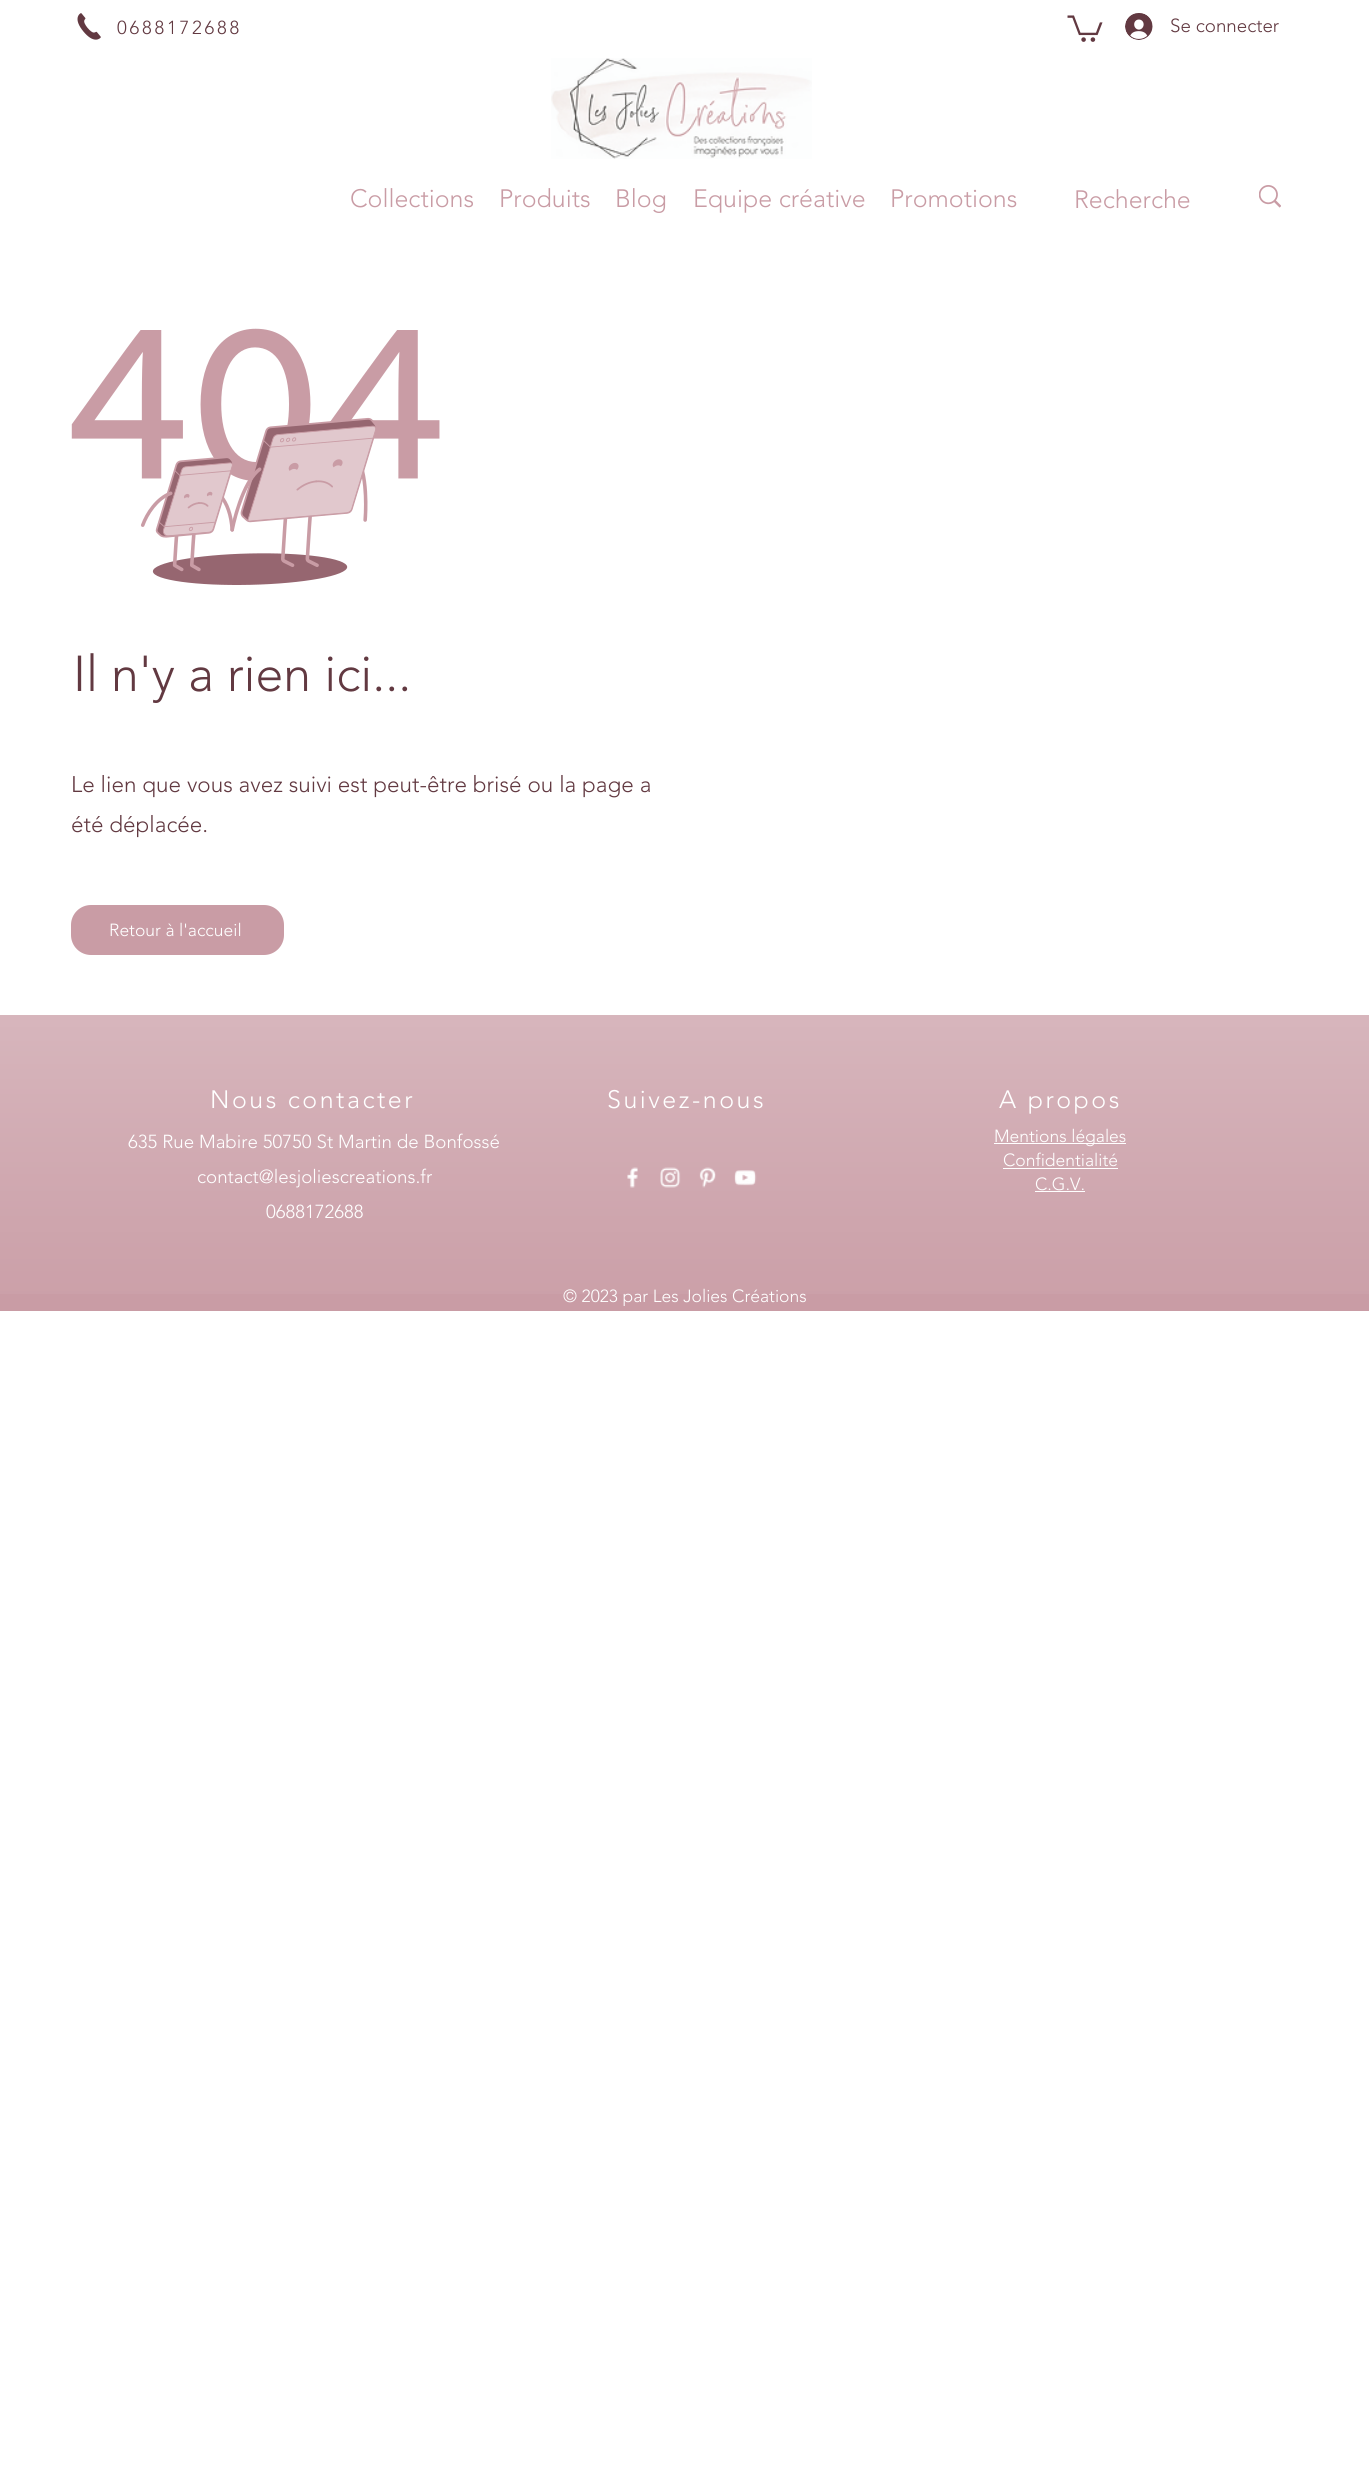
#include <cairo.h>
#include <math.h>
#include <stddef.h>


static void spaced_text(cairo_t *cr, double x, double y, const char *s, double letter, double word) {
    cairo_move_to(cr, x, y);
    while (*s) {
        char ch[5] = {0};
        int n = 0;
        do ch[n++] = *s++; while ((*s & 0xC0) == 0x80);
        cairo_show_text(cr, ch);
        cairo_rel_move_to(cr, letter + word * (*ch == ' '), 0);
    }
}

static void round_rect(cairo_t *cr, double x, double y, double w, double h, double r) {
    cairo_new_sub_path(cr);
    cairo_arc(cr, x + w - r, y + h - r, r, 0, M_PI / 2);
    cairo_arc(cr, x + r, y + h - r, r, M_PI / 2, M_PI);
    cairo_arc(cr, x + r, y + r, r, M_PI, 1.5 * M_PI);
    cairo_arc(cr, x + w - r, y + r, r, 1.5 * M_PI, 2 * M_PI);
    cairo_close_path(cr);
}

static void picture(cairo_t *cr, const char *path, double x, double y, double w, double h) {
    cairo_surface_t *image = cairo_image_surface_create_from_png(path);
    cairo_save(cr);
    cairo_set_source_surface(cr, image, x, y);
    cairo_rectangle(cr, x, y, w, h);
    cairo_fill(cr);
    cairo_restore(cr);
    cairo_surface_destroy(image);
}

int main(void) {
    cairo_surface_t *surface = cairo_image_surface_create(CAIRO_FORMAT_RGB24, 1369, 2481);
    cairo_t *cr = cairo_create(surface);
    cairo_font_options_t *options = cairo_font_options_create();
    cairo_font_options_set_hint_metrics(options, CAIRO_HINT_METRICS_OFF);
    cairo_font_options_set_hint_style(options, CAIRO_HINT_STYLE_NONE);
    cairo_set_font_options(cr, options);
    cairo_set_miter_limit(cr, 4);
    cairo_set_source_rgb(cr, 1, 1, 1);
    cairo_paint(cr);
    picture(cr, "img1.png", 77, 13, 24, 27);
    cairo_select_font_face(cr, "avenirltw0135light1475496 Light", CAIRO_FONT_SLANT_NORMAL, CAIRO_FONT_WEIGHT_NORMAL);
    cairo_set_font_size(cr, 18.75);
    cairo_set_source_rgb(cr, 0.384, 0.224, 0.255);
    spaced_text(cr, 117, 34, "0688172688", 2.75, 0);
    picture(cr, "img2.png", 1067, 15, 36, 27);
    picture(cr, "img3.png", 1125, 13, 28, 27);
    cairo_move_to(cr, 1170, 32);
    cairo_show_text(cr, "Se connecter");
    picture(cr, "img4.png", 551, 58, 261, 101);
    cairo_set_font_size(cr, 25);
    cairo_set_source_rgb(cr, 0.788, 0.612, 0.647);
    cairo_move_to(cr, 350, 207);
    cairo_show_text(cr, "Collections");
    cairo_move_to(cr, 499, 207);
    cairo_show_text(cr, "Produits");
    cairo_move_to(cr, 615, 207);
    cairo_show_text(cr, "Blog");
    cairo_move_to(cr, 693, 207);
    cairo_show_text(cr, "Equipe créative");
    cairo_move_to(cr, 890, 207);
    cairo_show_text(cr, "Promotions");
    cairo_move_to(cr, 1074, 208);
    cairo_show_text(cr, "Recherche");
    picture(cr, "img5.png", 1259, 185, 22, 23);
    picture(cr, "img6.png", 71, 328, 369, 257);
    cairo_set_font_size(cr, 50);
    cairo_set_source_rgb(cr, 0.384, 0.224, 0.255);
    cairo_move_to(cr, 73, 691);
    cairo_show_text(cr, "Il n'y a rien ici...");
    cairo_set_font_size(cr, 22.5);
    cairo_move_to(cr, 71, 792);
    cairo_show_text(cr, "Le lien que vous avez suivi est peut-être brisé ou la page a");
    cairo_move_to(cr, 71, 832);
    cairo_show_text(cr, "été déplacée.");
    cairo_set_source_rgb(cr, 0.788, 0.612, 0.647);
    round_rect(cr, 71, 905, 213, 50, 20);
    cairo_fill(cr);
    cairo_set_font_size(cr, 17.5);
    cairo_set_source_rgb(cr, 1, 1, 1);
    cairo_move_to(cr, 109, 936);
    cairo_show_text(cr, "Retour à l'accueil");
    cairo_set_source_rgb(cr, 0.788, 0.612, 0.647);
    cairo_rectangle(cr, 0, 1015, 1369, 296);
    cairo_fill(cr);
    picture(cr, "img7.png", 0, 1015, 1369, 279);
    cairo_set_font_size(cr, 25);
    cairo_set_source_rgb(cr, 1, 1, 1);
    spaced_text(cr, 210, 1108, "Nous contacter", 2.5, 0);
    spaced_text(cr, 607, 1108, "Suivez-nous", 2.5, 0);
    spaced_text(cr, 999, 1108, "A propos", 2.5, 0);
    cairo_set_font_size(cr, 18.75);
    cairo_move_to(cr, 128, 1148);
    cairo_show_text(cr, "635 Rue Mabire 50750 St Martin de Bonfossé");
    cairo_move_to(cr, 197, 1183);
    cairo_show_text(cr, "contact@lesjoliescreations.fr");
    cairo_move_to(cr, 266, 1218);
    cairo_show_text(cr, "0688172688");
    cairo_rectangle(cr, 994, 1143, 132, 1);
    cairo_fill(cr);
    cairo_set_font_size(cr, 17.5);
    cairo_move_to(cr, 994, 1142);
    cairo_show_text(cr, "Mentions légales");
    cairo_move_to(cr, 1003, 1166);
    cairo_show_text(cr, "Confidentialité");
    cairo_rectangle(cr, 1003, 1168, 115, 1);
    cairo_fill(cr);
    picture(cr, "img8.png", 627, 1167, 11, 21);
    picture(cr, "img9.png", 660, 1167, 21, 21);
    picture(cr, "img10.png", 699, 1167, 17, 21);
    picture(cr, "img11.png", 734, 1170, 23, 16);
    cairo_move_to(cr, 1035, 1190);
    cairo_show_text(cr, "C.G.V.");
    cairo_rectangle(cr, 1035, 1191, 50, 1);
    cairo_fill(cr);
    cairo_move_to(cr, 563, 1302);
    cairo_show_text(cr, "© 2023 par Les Jolies Créations");
    cairo_surface_write_to_png(surface, "page.png");
    cairo_font_options_destroy(options);
    cairo_destroy(cr);
    cairo_surface_destroy(surface);
    return 0;
}
